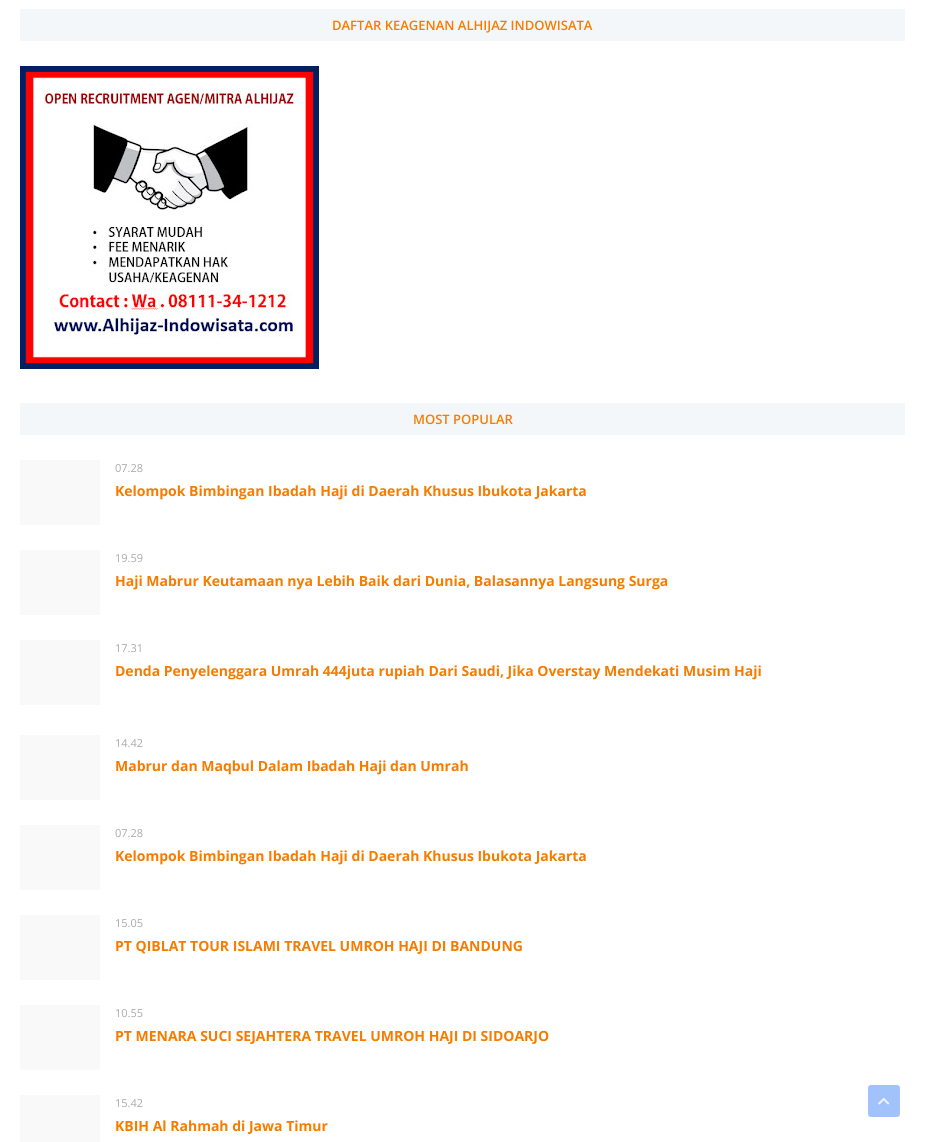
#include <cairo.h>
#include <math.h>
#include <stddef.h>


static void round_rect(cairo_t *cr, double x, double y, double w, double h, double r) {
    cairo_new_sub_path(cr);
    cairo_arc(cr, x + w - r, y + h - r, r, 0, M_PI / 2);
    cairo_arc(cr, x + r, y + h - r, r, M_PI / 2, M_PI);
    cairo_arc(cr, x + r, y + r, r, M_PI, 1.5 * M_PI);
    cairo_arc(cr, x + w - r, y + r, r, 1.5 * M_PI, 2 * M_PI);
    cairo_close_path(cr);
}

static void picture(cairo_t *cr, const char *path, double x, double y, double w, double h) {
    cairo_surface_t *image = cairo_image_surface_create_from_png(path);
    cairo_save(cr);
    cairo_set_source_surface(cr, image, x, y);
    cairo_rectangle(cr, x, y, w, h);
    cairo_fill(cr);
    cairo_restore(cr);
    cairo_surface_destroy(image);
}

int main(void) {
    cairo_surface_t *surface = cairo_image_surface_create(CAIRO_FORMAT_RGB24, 925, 1142);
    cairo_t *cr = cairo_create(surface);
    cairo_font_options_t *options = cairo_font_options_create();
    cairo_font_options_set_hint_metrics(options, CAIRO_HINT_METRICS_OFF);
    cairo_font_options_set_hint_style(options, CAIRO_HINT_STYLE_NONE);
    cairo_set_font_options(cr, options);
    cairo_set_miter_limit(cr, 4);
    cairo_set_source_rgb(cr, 1, 1, 1);
    cairo_paint(cr);
    cairo_set_source_rgb(cr, 0.957, 0.965, 0.973);
    cairo_rectangle(cr, 20, 9, 885, 32);
    cairo_fill(cr);
    cairo_select_font_face(cr, "Open Sans SemiBold", CAIRO_FONT_SLANT_NORMAL, CAIRO_FONT_WEIGHT_NORMAL);
    cairo_set_font_size(cr, 13);
    cairo_set_source_rgb(cr, 0.961, 0.486, 0);
    cairo_move_to(cr, 332, 30);
    cairo_show_text(cr, "DAFTAR KEAGENAN ALHIJAZ INDOWISATA");
    picture(cr, "img1.png", 20, 66, 299, 303);
    cairo_set_source_rgb(cr, 0.957, 0.965, 0.973);
    cairo_rectangle(cr, 20, 403, 885, 32);
    cairo_fill(cr);
    cairo_set_source_rgb(cr, 0.961, 0.486, 0);
    cairo_move_to(cr, 413, 424);
    cairo_show_text(cr, "MOST POPULAR");
    cairo_set_source_rgb(cr, 0.976, 0.976, 0.976);
    cairo_rectangle(cr, 20, 460, 80, 65);
    cairo_fill(cr);
    cairo_select_font_face(cr, "Open Sans", CAIRO_FONT_SLANT_NORMAL, CAIRO_FONT_WEIGHT_NORMAL);
    cairo_set_font_size(cr, 11);
    cairo_set_source_rgb(cr, 0.667, 0.667, 0.667);
    cairo_move_to(cr, 115, 472);
    cairo_show_text(cr, "07.28");
    cairo_select_font_face(cr, "Open Sans", CAIRO_FONT_SLANT_NORMAL, CAIRO_FONT_WEIGHT_BOLD);
    cairo_set_font_size(cr, 14);
    cairo_set_source_rgb(cr, 0.961, 0.486, 0);
    cairo_move_to(cr, 115, 496);
    cairo_show_text(cr, "Kelompok Bimbingan Ibadah Haji di Daerah Khusus Ibukota Jakarta");
    cairo_set_source_rgb(cr, 0.976, 0.976, 0.976);
    cairo_rectangle(cr, 20, 550, 80, 65);
    cairo_fill(cr);
    cairo_select_font_face(cr, "Open Sans", CAIRO_FONT_SLANT_NORMAL, CAIRO_FONT_WEIGHT_NORMAL);
    cairo_set_font_size(cr, 11);
    cairo_set_source_rgb(cr, 0.667, 0.667, 0.667);
    cairo_move_to(cr, 115, 562);
    cairo_show_text(cr, "19.59");
    cairo_select_font_face(cr, "Open Sans", CAIRO_FONT_SLANT_NORMAL, CAIRO_FONT_WEIGHT_BOLD);
    cairo_set_font_size(cr, 14);
    cairo_set_source_rgb(cr, 0.961, 0.486, 0);
    cairo_move_to(cr, 115, 586);
    cairo_show_text(cr, "Haji Mabrur Keutamaan nya Lebih Baik dari Dunia, Balasannya Langsung Surga");
    cairo_set_source_rgb(cr, 0.976, 0.976, 0.976);
    cairo_rectangle(cr, 20, 640, 80, 65);
    cairo_fill(cr);
    cairo_select_font_face(cr, "Open Sans", CAIRO_FONT_SLANT_NORMAL, CAIRO_FONT_WEIGHT_NORMAL);
    cairo_set_font_size(cr, 11);
    cairo_set_source_rgb(cr, 0.667, 0.667, 0.667);
    cairo_move_to(cr, 115, 652);
    cairo_show_text(cr, "17.31");
    cairo_select_font_face(cr, "Open Sans", CAIRO_FONT_SLANT_NORMAL, CAIRO_FONT_WEIGHT_BOLD);
    cairo_set_font_size(cr, 14);
    cairo_set_source_rgb(cr, 0.961, 0.486, 0);
    cairo_move_to(cr, 115, 676);
    cairo_show_text(cr, "Denda Penyelenggara Umrah 444juta rupiah Dari Saudi, Jika Overstay Mendekati Musim Haji");
    cairo_set_source_rgb(cr, 0.976, 0.976, 0.976);
    cairo_rectangle(cr, 20, 735, 80, 65);
    cairo_fill(cr);
    cairo_select_font_face(cr, "Open Sans", CAIRO_FONT_SLANT_NORMAL, CAIRO_FONT_WEIGHT_NORMAL);
    cairo_set_font_size(cr, 11);
    cairo_set_source_rgb(cr, 0.667, 0.667, 0.667);
    cairo_move_to(cr, 115, 747);
    cairo_show_text(cr, "14.42");
    cairo_select_font_face(cr, "Open Sans", CAIRO_FONT_SLANT_NORMAL, CAIRO_FONT_WEIGHT_BOLD);
    cairo_set_font_size(cr, 14);
    cairo_set_source_rgb(cr, 0.961, 0.486, 0);
    cairo_move_to(cr, 115, 771);
    cairo_show_text(cr, "Mabrur dan Maqbul Dalam Ibadah Haji dan Umrah");
    cairo_set_source_rgb(cr, 0.976, 0.976, 0.976);
    cairo_rectangle(cr, 20, 825, 80, 65);
    cairo_fill(cr);
    cairo_select_font_face(cr, "Open Sans", CAIRO_FONT_SLANT_NORMAL, CAIRO_FONT_WEIGHT_NORMAL);
    cairo_set_font_size(cr, 11);
    cairo_set_source_rgb(cr, 0.667, 0.667, 0.667);
    cairo_move_to(cr, 115, 837);
    cairo_show_text(cr, "07.28");
    cairo_select_font_face(cr, "Open Sans", CAIRO_FONT_SLANT_NORMAL, CAIRO_FONT_WEIGHT_BOLD);
    cairo_set_font_size(cr, 14);
    cairo_set_source_rgb(cr, 0.961, 0.486, 0);
    cairo_move_to(cr, 115, 861);
    cairo_show_text(cr, "Kelompok Bimbingan Ibadah Haji di Daerah Khusus Ibukota Jakarta");
    cairo_set_source_rgb(cr, 0.976, 0.976, 0.976);
    cairo_rectangle(cr, 20, 915, 80, 65);
    cairo_fill(cr);
    cairo_select_font_face(cr, "Open Sans", CAIRO_FONT_SLANT_NORMAL, CAIRO_FONT_WEIGHT_NORMAL);
    cairo_set_font_size(cr, 11);
    cairo_set_source_rgb(cr, 0.667, 0.667, 0.667);
    cairo_move_to(cr, 115, 927);
    cairo_show_text(cr, "15.05");
    cairo_select_font_face(cr, "Open Sans", CAIRO_FONT_SLANT_NORMAL, CAIRO_FONT_WEIGHT_BOLD);
    cairo_set_font_size(cr, 14);
    cairo_set_source_rgb(cr, 0.961, 0.486, 0);
    cairo_move_to(cr, 115, 951);
    cairo_show_text(cr, "PT QIBLAT TOUR ISLAMI TRAVEL UMROH HAJI DI BANDUNG");
    cairo_set_source_rgb(cr, 0.976, 0.976, 0.976);
    cairo_rectangle(cr, 20, 1005, 80, 65);
    cairo_fill(cr);
    cairo_select_font_face(cr, "Open Sans", CAIRO_FONT_SLANT_NORMAL, CAIRO_FONT_WEIGHT_NORMAL);
    cairo_set_font_size(cr, 11);
    cairo_set_source_rgb(cr, 0.667, 0.667, 0.667);
    cairo_move_to(cr, 115, 1017);
    cairo_show_text(cr, "10.55");
    cairo_select_font_face(cr, "Open Sans", CAIRO_FONT_SLANT_NORMAL, CAIRO_FONT_WEIGHT_BOLD);
    cairo_set_font_size(cr, 14);
    cairo_set_source_rgb(cr, 0.961, 0.486, 0);
    cairo_move_to(cr, 115, 1041);
    cairo_show_text(cr, "PT MENARA SUCI SEJAHTERA TRAVEL UMROH HAJI DI SIDOARJO");
    cairo_set_source_rgb(cr, 0.976, 0.976, 0.976);
    cairo_rectangle(cr, 20, 1095, 80, 47);
    cairo_fill(cr);
    cairo_select_font_face(cr, "Open Sans", CAIRO_FONT_SLANT_NORMAL, CAIRO_FONT_WEIGHT_NORMAL);
    cairo_set_font_size(cr, 11);
    cairo_set_source_rgb(cr, 0.667, 0.667, 0.667);
    cairo_move_to(cr, 115, 1107);
    cairo_show_text(cr, "15.42");
    cairo_select_font_face(cr, "Open Sans", CAIRO_FONT_SLANT_NORMAL, CAIRO_FONT_WEIGHT_BOLD);
    cairo_set_font_size(cr, 14);
    cairo_set_source_rgb(cr, 0.961, 0.486, 0);
    cairo_move_to(cr, 115, 1131);
    cairo_show_text(cr, "KBIH Al Rahmah di Jawa Timur");
    cairo_set_source_rgb(cr, 0.631, 0.761, 0.98);
    round_rect(cr, 868, 1085, 32, 32, 3);
    cairo_fill(cr);
    picture(cr, "img2.png", 878, 1097, 12, 8);
    cairo_surface_write_to_png(surface, "page.png");
    cairo_font_options_destroy(options);
    cairo_destroy(cr);
    cairo_surface_destroy(surface);
    return 0;
}
